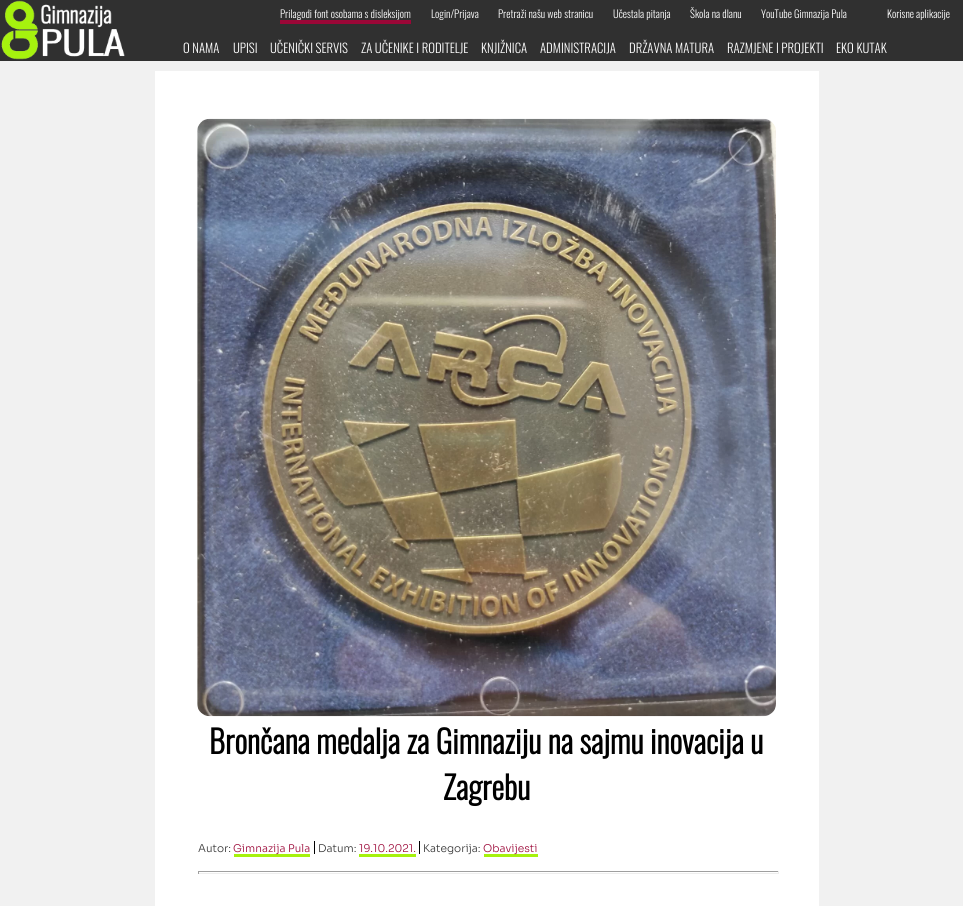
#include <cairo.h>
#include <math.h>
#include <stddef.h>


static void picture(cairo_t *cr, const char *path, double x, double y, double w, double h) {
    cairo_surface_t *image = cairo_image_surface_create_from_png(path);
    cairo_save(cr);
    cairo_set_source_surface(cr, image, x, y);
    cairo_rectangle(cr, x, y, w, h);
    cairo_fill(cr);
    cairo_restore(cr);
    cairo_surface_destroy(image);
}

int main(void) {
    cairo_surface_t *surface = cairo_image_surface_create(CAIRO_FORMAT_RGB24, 963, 906);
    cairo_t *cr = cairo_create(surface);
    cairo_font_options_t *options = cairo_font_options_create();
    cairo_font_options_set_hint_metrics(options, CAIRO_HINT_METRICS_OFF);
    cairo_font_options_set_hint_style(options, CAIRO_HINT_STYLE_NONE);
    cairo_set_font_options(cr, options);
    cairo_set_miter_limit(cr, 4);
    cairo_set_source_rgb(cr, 0.945, 0.945, 0.945);
    cairo_paint(cr);
    cairo_set_source_rgb(cr, 0.188, 0.188, 0.188);
    cairo_rectangle(cr, 0, 0, 963, 61);
    cairo_fill(cr);
    picture(cr, "img1.png", 1, 0, 124, 60);
    cairo_select_font_face(cr, "Oswald Light", CAIRO_FONT_SLANT_NORMAL, CAIRO_FONT_WEIGHT_NORMAL);
    cairo_set_font_size(cr, 10.6);
    cairo_set_source_rgb(cr, 1, 1, 1);
    cairo_move_to(cr, 280, 18);
    cairo_show_text(cr, "Prilagodi font osobama s disleksijom");
    cairo_set_source_rgb(cr, 0.608, 0.031, 0.216);
    cairo_rectangle(cr, 280, 20, 131, 4);
    cairo_fill(cr);
    cairo_set_source_rgb(cr, 1, 1, 1);
    cairo_move_to(cr, 431, 18);
    cairo_show_text(cr, "Login/Prijava");
    cairo_move_to(cr, 498, 18);
    cairo_show_text(cr, "Pretraži našu web stranicu");
    cairo_move_to(cr, 613, 18);
    cairo_show_text(cr, "Učestala pitanja");
    cairo_move_to(cr, 690, 18);
    cairo_show_text(cr, "Škola na dlanu");
    cairo_move_to(cr, 761, 18);
    cairo_show_text(cr, "YouTube Gimnazija Pula");
    cairo_move_to(cr, 887, 18);
    cairo_show_text(cr, "Korisne aplikacije");
    cairo_set_font_size(cr, 12.75);
    cairo_move_to(cr, 183, 53);
    cairo_show_text(cr, "O NAMA");
    cairo_move_to(cr, 233, 53);
    cairo_show_text(cr, "UPISI");
    cairo_move_to(cr, 270, 53);
    cairo_show_text(cr, "UČENIČKI SERVIS");
    cairo_move_to(cr, 361, 53);
    cairo_show_text(cr, "ZA UČENIKE I RODITELJE");
    cairo_move_to(cr, 481, 53);
    cairo_show_text(cr, "KNJIŽNICA");
    cairo_move_to(cr, 540, 53);
    cairo_show_text(cr, "ADMINISTRACIJA");
    cairo_move_to(cr, 629, 53);
    cairo_show_text(cr, "DRŽAVNA MATURA");
    cairo_move_to(cr, 727, 53);
    cairo_show_text(cr, "RAZMJENE I PROJEKTI");
    cairo_move_to(cr, 836, 53);
    cairo_show_text(cr, "EKO KUTAK");
    cairo_rectangle(cr, 155, 71, 664, 835);
    cairo_fill(cr);
    picture(cr, "img2.png", 197, 118, 579, 599);
    cairo_select_font_face(cr, "Oswald", CAIRO_FONT_SLANT_NORMAL, CAIRO_FONT_WEIGHT_BOLD);
    cairo_set_font_size(cr, 31.75);
    cairo_set_source_rgb(cr, 0, 0, 0);
    cairo_move_to(cr, 209, 754);
    cairo_show_text(cr, "Brončana medalja za Gimnaziju na sajmu inovacija u");
    cairo_move_to(cr, 443, 800);
    cairo_show_text(cr, "Zagrebu");
    cairo_rectangle(cr, 314, 841, 1, 13);
    cairo_fill(cr);
    cairo_select_font_face(cr, "Sora Light", CAIRO_FONT_SLANT_NORMAL, CAIRO_FONT_WEIGHT_NORMAL);
    cairo_set_font_size(cr, 10.6);
    cairo_set_source_rgb(cr, 0.2, 0.2, 0.2);
    cairo_move_to(cr, 198, 852);
    cairo_show_text(cr, "Autor:");
    cairo_set_source_rgb(cr, 0.651, 0.949, 0.051);
    cairo_rectangle(cr, 234, 854, 76, 3);
    cairo_fill(cr);
    cairo_set_source_rgb(cr, 0.608, 0.031, 0.216);
    cairo_move_to(cr, 233, 852);
    cairo_show_text(cr, "Gimnazija Pula");
    cairo_set_source_rgb(cr, 0, 0, 0);
    cairo_rectangle(cr, 419, 841, 1, 13);
    cairo_fill(cr);
    cairo_set_source_rgb(cr, 0.2, 0.2, 0.2);
    cairo_move_to(cr, 318, 852);
    cairo_show_text(cr, "Datum:");
    cairo_set_source_rgb(cr, 0.608, 0.031, 0.216);
    cairo_move_to(cr, 359, 852);
    cairo_show_text(cr, "19.10.2021.");
    cairo_set_source_rgb(cr, 0.651, 0.949, 0.051);
    cairo_rectangle(cr, 359, 854, 57, 3);
    cairo_fill(cr);
    cairo_set_source_rgb(cr, 0.2, 0.2, 0.2);
    cairo_move_to(cr, 423, 852);
    cairo_show_text(cr, "Kategorija:");
    cairo_set_source_rgb(cr, 0.651, 0.949, 0.051);
    cairo_rectangle(cr, 484, 854, 54, 3);
    cairo_fill(cr);
    cairo_set_source_rgb(cr, 0.608, 0.031, 0.216);
    cairo_move_to(cr, 483, 852);
    cairo_show_text(cr, "Obavijesti");
    cairo_set_source_rgb(cr, 0.624, 0.624, 0.624);
    cairo_rectangle(cr, 198, 871, 581, 1);
    cairo_fill(cr);
    cairo_set_source_rgb(cr, 0.933, 0.933, 0.933);
    cairo_rectangle(cr, 778, 871, 1, 3);
    cairo_fill(cr);
    cairo_rectangle(cr, 198, 873, 581, 1);
    cairo_fill(cr);
    cairo_set_source_rgb(cr, 0.624, 0.624, 0.624);
    cairo_rectangle(cr, 198, 871, 1, 3);
    cairo_fill(cr);
    cairo_surface_write_to_png(surface, "page.png");
    cairo_font_options_destroy(options);
    cairo_destroy(cr);
    cairo_surface_destroy(surface);
    return 0;
}
